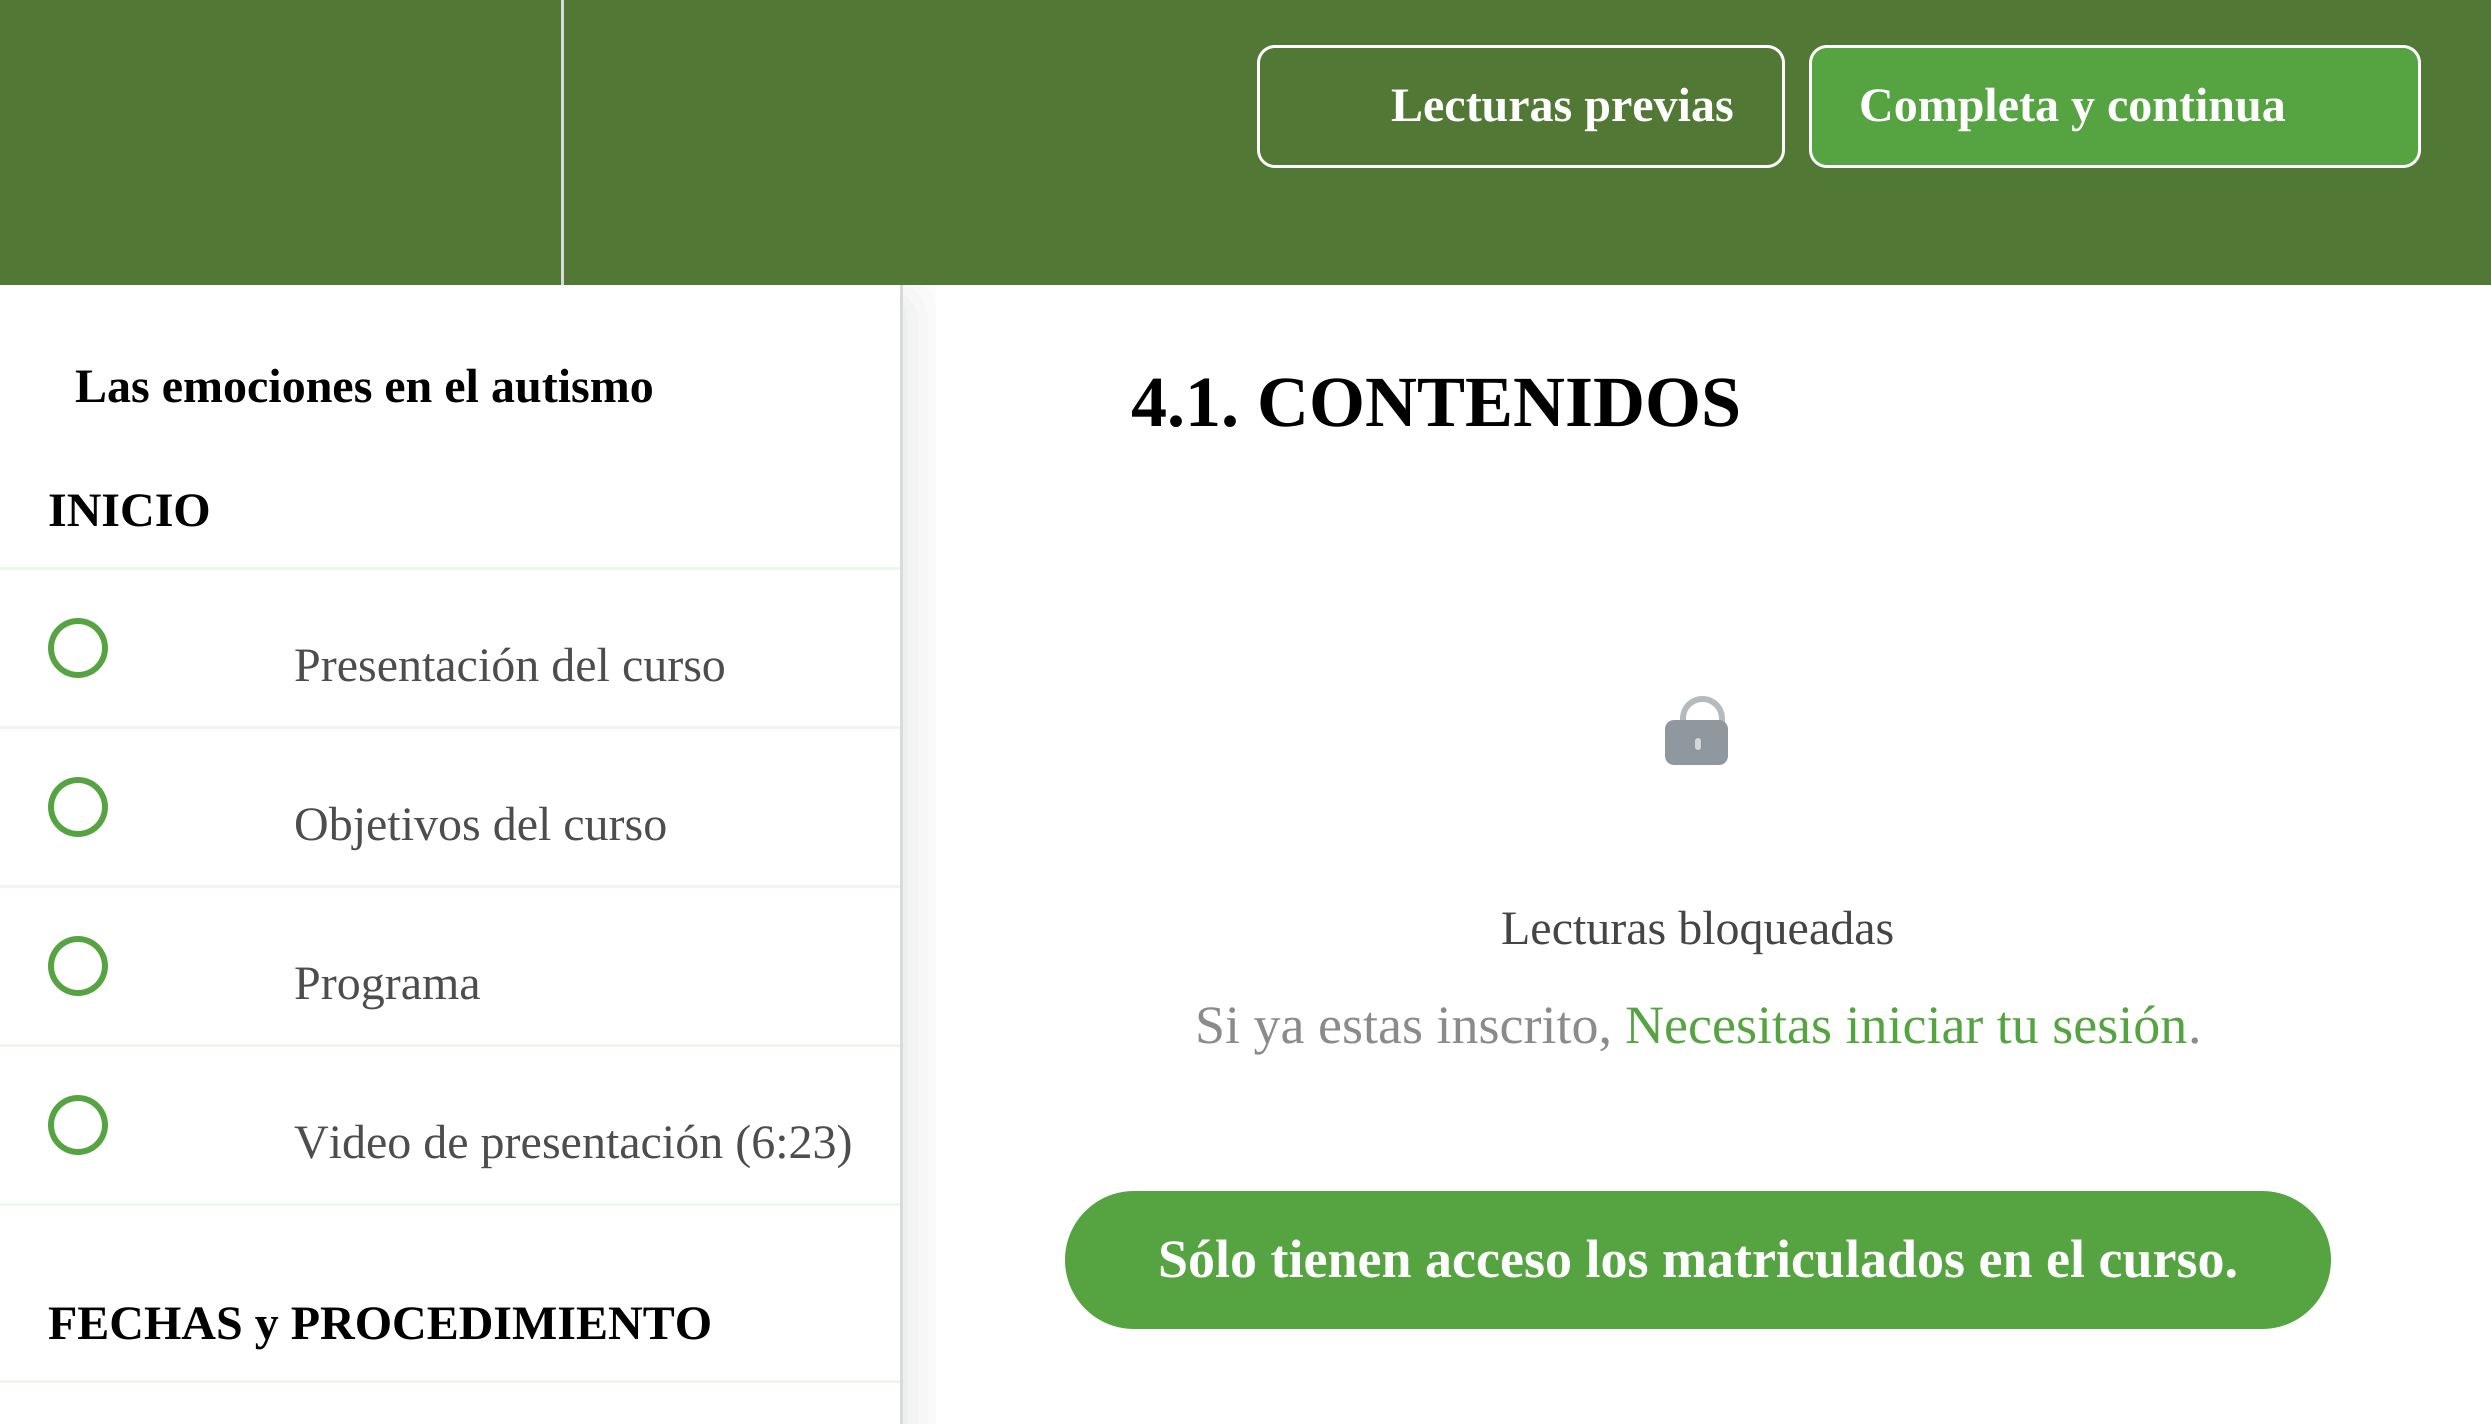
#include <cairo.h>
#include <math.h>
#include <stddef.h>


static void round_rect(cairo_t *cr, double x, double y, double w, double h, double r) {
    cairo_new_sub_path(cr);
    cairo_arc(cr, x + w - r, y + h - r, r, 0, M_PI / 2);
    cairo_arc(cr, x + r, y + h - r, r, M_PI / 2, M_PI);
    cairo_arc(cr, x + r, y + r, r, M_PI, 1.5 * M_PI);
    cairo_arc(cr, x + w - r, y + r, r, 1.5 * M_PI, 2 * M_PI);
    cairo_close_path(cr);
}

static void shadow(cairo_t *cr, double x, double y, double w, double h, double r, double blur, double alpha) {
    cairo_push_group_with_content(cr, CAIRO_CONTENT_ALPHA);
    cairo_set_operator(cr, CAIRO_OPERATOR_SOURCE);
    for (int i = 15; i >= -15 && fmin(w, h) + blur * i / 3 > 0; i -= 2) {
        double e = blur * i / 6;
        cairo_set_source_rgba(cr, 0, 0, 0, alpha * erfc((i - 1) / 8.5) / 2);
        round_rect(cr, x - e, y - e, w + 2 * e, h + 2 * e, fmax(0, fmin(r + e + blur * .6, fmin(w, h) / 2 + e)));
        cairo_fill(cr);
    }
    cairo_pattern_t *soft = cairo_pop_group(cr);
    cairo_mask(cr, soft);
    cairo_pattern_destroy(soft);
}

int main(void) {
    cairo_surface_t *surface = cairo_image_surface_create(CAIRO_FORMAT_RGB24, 2491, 1424);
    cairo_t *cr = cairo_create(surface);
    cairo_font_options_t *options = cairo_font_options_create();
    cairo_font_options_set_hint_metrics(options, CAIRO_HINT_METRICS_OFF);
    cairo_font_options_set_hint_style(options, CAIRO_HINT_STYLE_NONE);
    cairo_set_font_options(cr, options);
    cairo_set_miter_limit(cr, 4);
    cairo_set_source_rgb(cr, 1, 1, 1);
    cairo_paint(cr);
    cairo_save(cr);
    cairo_rectangle(cr, 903, 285, 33, 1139);
    cairo_clip(cr);
    cairo_set_source_rgb(cr, 0.125, 0.153, 0.176);
    shadow(cr, 0, 303, 903, 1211, 0, 30, 0.15);
    cairo_restore(cr);
    cairo_set_source_rgb(cr, 0.322, 0.471, 0.212);
    cairo_rectangle(cr, 0, 0, 2491, 285);
    cairo_fill(cr);
    cairo_set_source_rgb(cr, 0.843, 0.855, 0.859);
    cairo_rectangle(cr, 561, 0, 3, 285);
    cairo_fill(cr);
    round_rect(cr, 1258.5, 46.5, 525, 120, 16.5);
    cairo_set_source_rgb(cr, 1, 1, 1);
    cairo_set_line_width(cr, 3);
    cairo_stroke(cr);
    cairo_select_font_face(cr, "Liberation Serif", CAIRO_FONT_SLANT_NORMAL, CAIRO_FONT_WEIGHT_BOLD);
    cairo_set_font_size(cr, 48);
    cairo_move_to(cr, 1391, 121);
    cairo_show_text(cr, "Lecturas previas");
    cairo_set_source_rgb(cr, 0.337, 0.643, 0.255);
    round_rect(cr, 1810.5, 46.5, 609, 120, 16.5);
    cairo_fill_preserve(cr);
    cairo_set_source_rgb(cr, 1, 1, 1);
    cairo_stroke(cr);
    cairo_move_to(cr, 1859, 121);
    cairo_show_text(cr, "Completa y continua");
    cairo_set_source_rgb(cr, 0.843, 0.855, 0.859);
    cairo_rectangle(cr, 900, 285, 3, 1139);
    cairo_fill(cr);
    cairo_set_source_rgb(cr, 0, 0, 0);
    cairo_move_to(cr, 75, 402);
    cairo_show_text(cr, "Las emociones en el autismo");
    cairo_set_source_rgb(cr, 0.933, 0.965, 0.925);
    cairo_rectangle(cr, 0, 567, 900, 3);
    cairo_fill(cr);
    cairo_set_source_rgb(cr, 0, 0, 0);
    cairo_move_to(cr, 48, 526);
    cairo_show_text(cr, "INICIO");
    cairo_set_source_rgb(cr, 0.933, 0.965, 0.925);
    cairo_rectangle(cr, 0, 726, 900, 3);
    cairo_fill(cr);
    cairo_arc(cr, 78, 648, 27, 0, 2 * M_PI);
    cairo_set_source_rgb(cr, 0.337, 0.643, 0.255);
    cairo_set_line_width(cr, 6);
    cairo_stroke(cr);
    cairo_select_font_face(cr, "Liberation Serif", CAIRO_FONT_SLANT_NORMAL, CAIRO_FONT_WEIGHT_NORMAL);
    cairo_set_source_rgb(cr, 0.302, 0.302, 0.302);
    cairo_move_to(cr, 294, 681);
    cairo_show_text(cr, "Presentación del curso");
    cairo_set_source_rgb(cr, 0.933, 0.965, 0.925);
    cairo_rectangle(cr, 0, 885, 900, 3);
    cairo_fill(cr);
    cairo_arc(cr, 78, 807, 27, 0, 2 * M_PI);
    cairo_set_source_rgb(cr, 0.337, 0.643, 0.255);
    cairo_stroke(cr);
    cairo_set_source_rgb(cr, 0.302, 0.302, 0.302);
    cairo_move_to(cr, 294, 840);
    cairo_show_text(cr, "Objetivos del curso");
    cairo_set_source_rgb(cr, 0.933, 0.965, 0.925);
    cairo_rectangle(cr, 0, 1044, 900, 3);
    cairo_fill(cr);
    cairo_arc(cr, 78, 966, 27, 0, 2 * M_PI);
    cairo_set_source_rgb(cr, 0.337, 0.643, 0.255);
    cairo_stroke(cr);
    cairo_set_source_rgb(cr, 0.302, 0.302, 0.302);
    cairo_move_to(cr, 294, 999);
    cairo_show_text(cr, "Programa");
    cairo_set_source_rgb(cr, 0.933, 0.965, 0.925);
    cairo_rectangle(cr, 0, 1203, 900, 3);
    cairo_fill(cr);
    cairo_arc(cr, 78, 1125, 27, 0, 2 * M_PI);
    cairo_set_source_rgb(cr, 0.337, 0.643, 0.255);
    cairo_stroke(cr);
    cairo_set_source_rgb(cr, 0.302, 0.302, 0.302);
    cairo_move_to(cr, 294, 1158);
    cairo_show_text(cr, "Video de presentación (6:23)");
    cairo_set_source_rgb(cr, 0.933, 0.965, 0.925);
    cairo_rectangle(cr, 0, 1380, 900, 3);
    cairo_fill(cr);
    cairo_select_font_face(cr, "Liberation Serif", CAIRO_FONT_SLANT_NORMAL, CAIRO_FONT_WEIGHT_BOLD);
    cairo_set_source_rgb(cr, 0, 0, 0);
    cairo_move_to(cr, 48, 1339);
    cairo_show_text(cr, "FECHAS y PROCEDIMIENTO");
    cairo_set_font_size(cr, 72);
    cairo_move_to(cr, 1131, 426);
    cairo_show_text(cr, "4.1. CONTENIDOS");
    round_rect(cr, 1683, 699, 39, 60, 19.5);
    cairo_set_source_rgb(cr, 0.71, 0.729, 0.749);
    cairo_stroke(cr);
    cairo_set_source_rgb(cr, 0.561, 0.596, 0.624);
    round_rect(cr, 1665, 720, 63, 45, 9);
    cairo_fill(cr);
    cairo_set_source_rgb(cr, 0.827, 0.843, 0.863);
    round_rect(cr, 1695, 738, 6, 12, 3);
    cairo_fill(cr);
    cairo_select_font_face(cr, "Liberation Serif", CAIRO_FONT_SLANT_NORMAL, CAIRO_FONT_WEIGHT_NORMAL);
    cairo_set_font_size(cr, 48);
    cairo_set_source_rgb(cr, 0.271, 0.271, 0.271);
    cairo_move_to(cr, 1501, 944);
    cairo_show_text(cr, "Lecturas bloqueadas");
    cairo_set_font_size(cr, 54);
    cairo_set_source_rgb(cr, 0.545, 0.545, 0.545);
    cairo_move_to(cr, 1195, 1043);
    cairo_show_text(cr, "Si ya estas inscrito,");
    cairo_set_source_rgb(cr, 0.337, 0.643, 0.255);
    cairo_move_to(cr, 1625, 1043);
    cairo_show_text(cr, "Necesitas iniciar tu sesión");
    cairo_set_source_rgb(cr, 0.545, 0.545, 0.545);
    cairo_move_to(cr, 2188, 1043);
    cairo_show_text(cr, ".");
    cairo_set_source_rgb(cr, 0.337, 0.643, 0.255);
    round_rect(cr, 1066.5, 1192.5, 1263, 135, 67.5);
    cairo_fill_preserve(cr);
    cairo_set_line_width(cr, 3);
    cairo_stroke(cr);
    cairo_select_font_face(cr, "Liberation Serif", CAIRO_FONT_SLANT_NORMAL, CAIRO_FONT_WEIGHT_BOLD);
    cairo_set_source_rgb(cr, 1, 1, 1);
    cairo_move_to(cr, 1158, 1277);
    cairo_show_text(cr, "Sólo tienen acceso los matriculados en el curso.");
    cairo_surface_write_to_png(surface, "page.png");
    cairo_font_options_destroy(options);
    cairo_destroy(cr);
    cairo_surface_destroy(surface);
    return 0;
}
